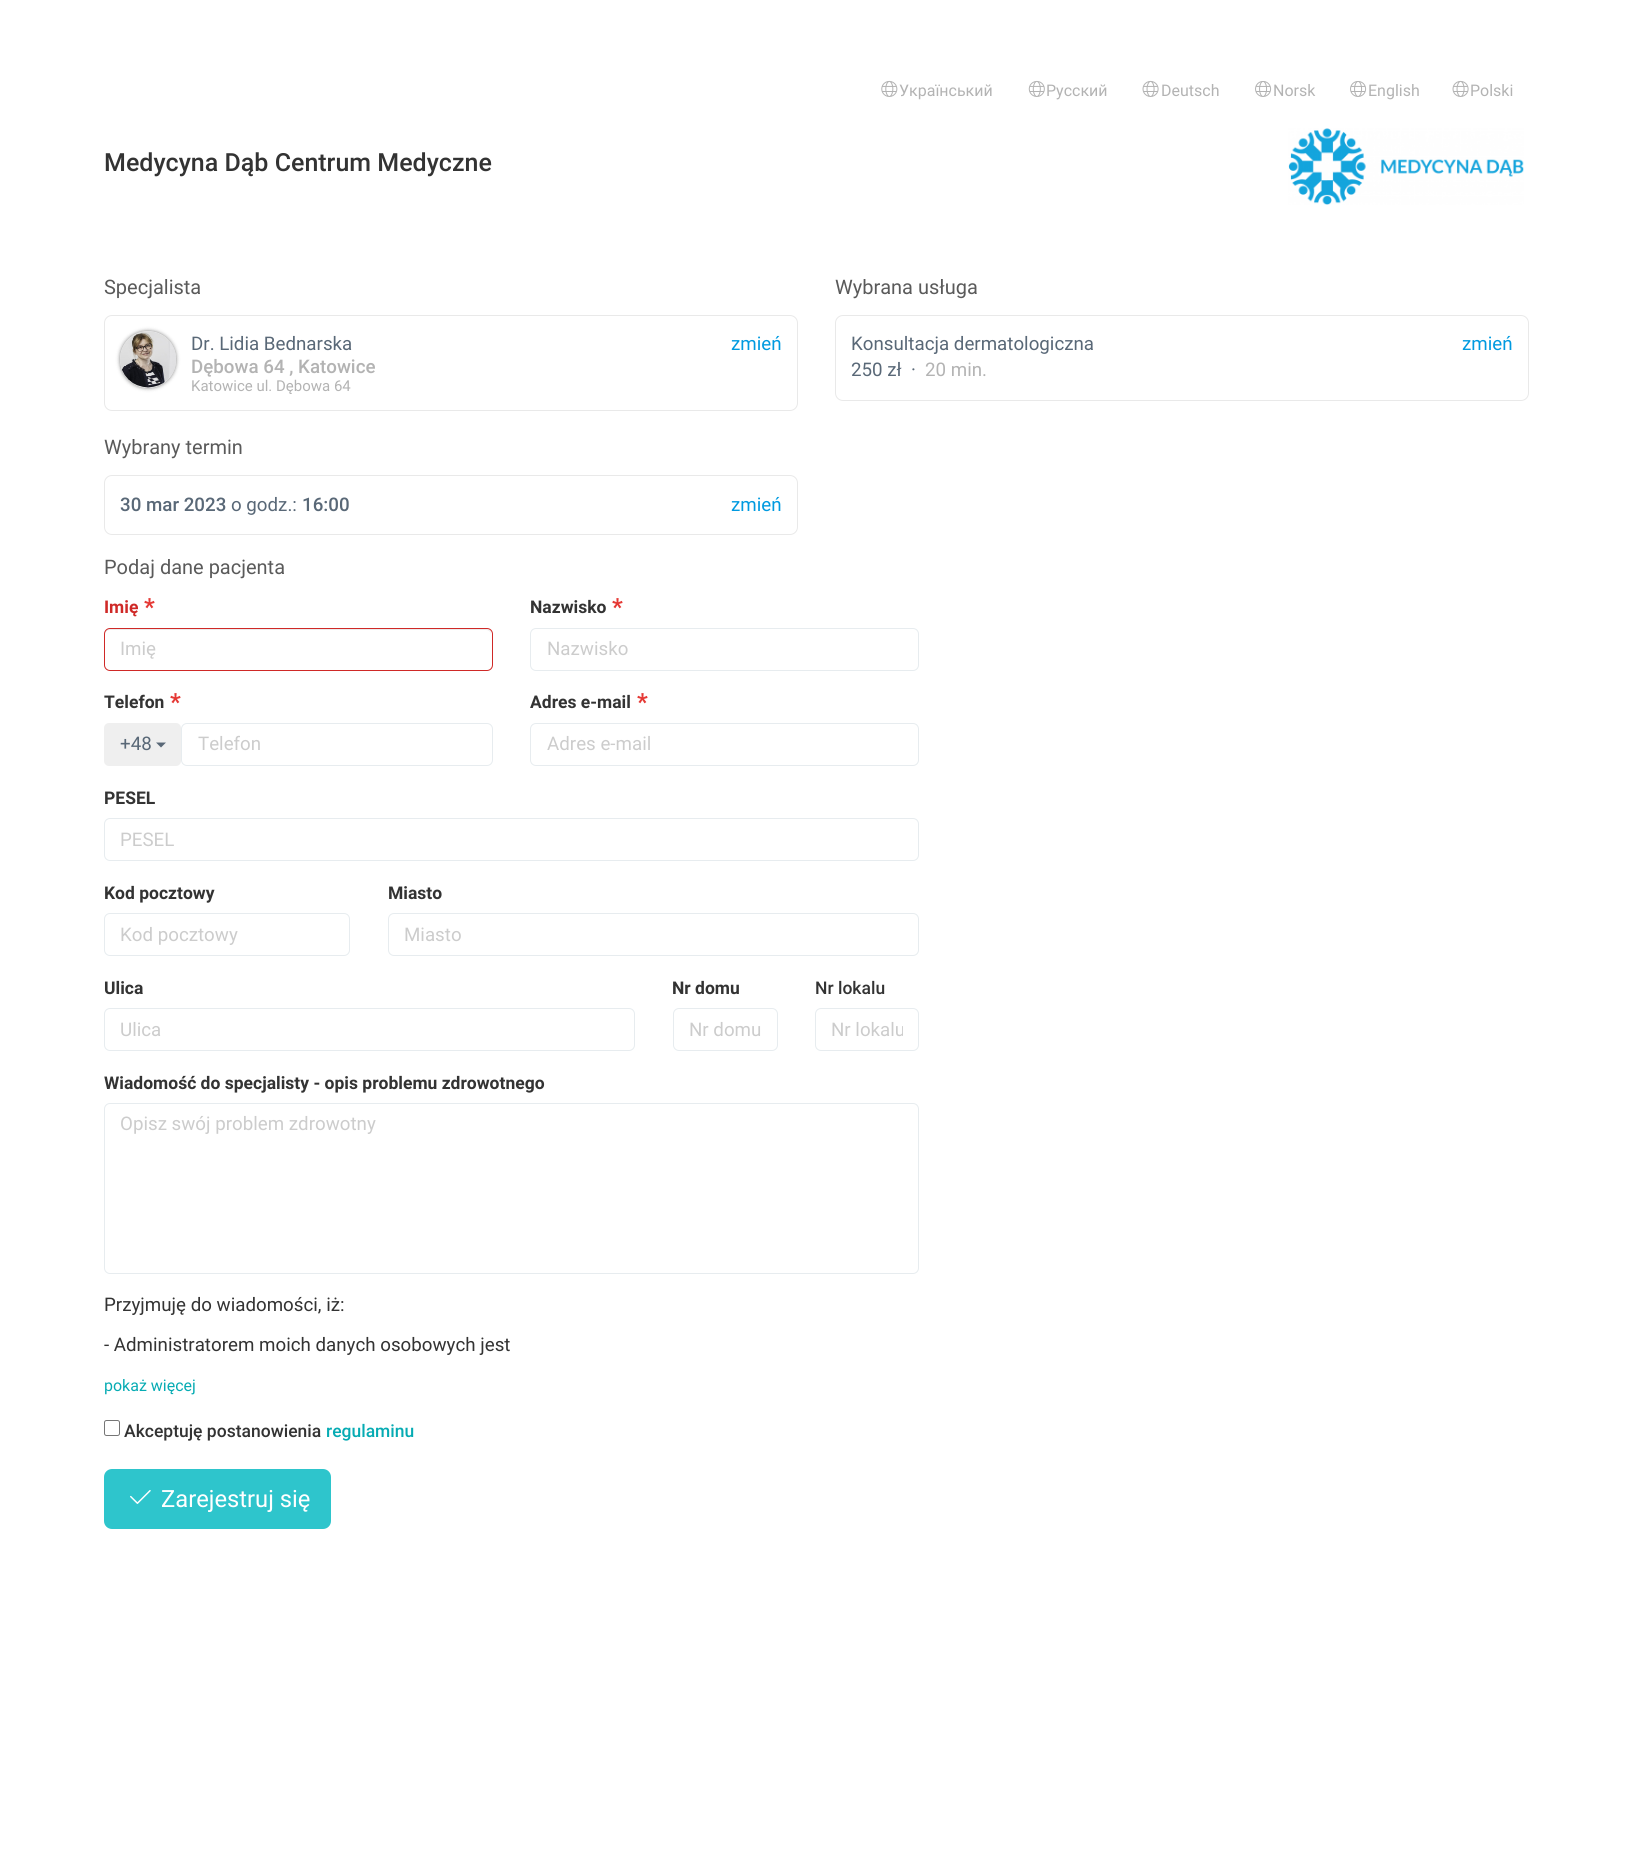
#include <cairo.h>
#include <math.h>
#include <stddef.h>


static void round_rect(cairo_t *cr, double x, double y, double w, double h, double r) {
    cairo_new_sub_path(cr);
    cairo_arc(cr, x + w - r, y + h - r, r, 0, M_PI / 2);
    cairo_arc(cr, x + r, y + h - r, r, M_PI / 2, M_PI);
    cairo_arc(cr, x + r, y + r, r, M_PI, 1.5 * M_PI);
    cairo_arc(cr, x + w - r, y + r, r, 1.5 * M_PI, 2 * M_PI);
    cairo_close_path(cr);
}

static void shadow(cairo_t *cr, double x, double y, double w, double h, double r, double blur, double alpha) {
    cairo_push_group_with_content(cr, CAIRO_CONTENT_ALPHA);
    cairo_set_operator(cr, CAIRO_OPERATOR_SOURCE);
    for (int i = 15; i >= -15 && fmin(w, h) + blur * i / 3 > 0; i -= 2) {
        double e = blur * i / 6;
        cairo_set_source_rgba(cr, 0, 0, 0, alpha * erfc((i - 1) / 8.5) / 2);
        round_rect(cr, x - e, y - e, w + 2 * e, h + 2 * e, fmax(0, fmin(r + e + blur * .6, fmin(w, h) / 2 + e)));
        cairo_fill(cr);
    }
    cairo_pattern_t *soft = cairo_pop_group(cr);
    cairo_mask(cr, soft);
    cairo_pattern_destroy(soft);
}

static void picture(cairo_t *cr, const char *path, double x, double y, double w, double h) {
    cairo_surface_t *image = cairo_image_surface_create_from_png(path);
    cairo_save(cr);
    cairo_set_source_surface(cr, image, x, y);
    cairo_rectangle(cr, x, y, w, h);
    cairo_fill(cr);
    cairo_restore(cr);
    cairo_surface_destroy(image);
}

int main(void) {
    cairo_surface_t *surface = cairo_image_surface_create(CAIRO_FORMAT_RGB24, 1632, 1868);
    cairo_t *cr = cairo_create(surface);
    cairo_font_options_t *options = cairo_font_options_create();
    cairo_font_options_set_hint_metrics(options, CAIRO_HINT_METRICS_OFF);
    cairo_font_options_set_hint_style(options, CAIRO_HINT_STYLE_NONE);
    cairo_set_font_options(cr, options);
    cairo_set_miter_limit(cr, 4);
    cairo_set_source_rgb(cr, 1, 1, 1);
    cairo_paint(cr);
    picture(cr, "img1.png", 881, 80, 17, 17);
    cairo_select_font_face(cr, "Roboto", CAIRO_FONT_SLANT_NORMAL, CAIRO_FONT_WEIGHT_NORMAL);
    cairo_set_font_size(cr, 16);
    cairo_set_source_rgb(cr, 0.702, 0.702, 0.702);
    cairo_move_to(cr, 899, 96);
    cairo_show_text(cr, "Український");
    picture(cr, "img2.png", 1028, 80, 17, 17);
    cairo_move_to(cr, 1046, 96);
    cairo_show_text(cr, "Русский");
    picture(cr, "img3.png", 1142, 80, 17, 17);
    cairo_move_to(cr, 1161, 96);
    cairo_show_text(cr, "Deutsch");
    picture(cr, "img4.png", 1255, 81, 17, 16);
    cairo_move_to(cr, 1273, 96);
    cairo_show_text(cr, "Norsk");
    picture(cr, "img4.png", 1350, 81, 17, 16);
    cairo_move_to(cr, 1368, 96);
    cairo_show_text(cr, "English");
    picture(cr, "img3.png", 1452, 80, 17, 17);
    cairo_move_to(cr, 1470, 96);
    cairo_show_text(cr, "Polski");
    cairo_select_font_face(cr, "Roboto Medium", CAIRO_FONT_SLANT_NORMAL, CAIRO_FONT_WEIGHT_NORMAL);
    cairo_set_font_size(cr, 25);
    cairo_set_source_rgb(cr, 0.2, 0.2, 0.2);
    cairo_move_to(cr, 104, 171);
    cairo_show_text(cr, "Medycyna Dąb Centrum Medyczne");
    picture(cr, "img5.png", 1288, 128, 236, 77);
    cairo_select_font_face(cr, "Roboto", CAIRO_FONT_SLANT_NORMAL, CAIRO_FONT_WEIGHT_NORMAL);
    cairo_set_font_size(cr, 20);
    cairo_set_source_rgb(cr, 0.353, 0.353, 0.353);
    cairo_move_to(cr, 104, 294);
    cairo_show_text(cr, "Specjalista");
    round_rect(cr, 104.5, 315.5, 693, 95, 7.5);
    cairo_set_source_rgb(cr, 0.914, 0.914, 0.914);
    cairo_set_line_width(cr, 1);
    cairo_stroke(cr);
    cairo_set_source_rgb(cr, 0, 0, 0);
    shadow(cr, 120, 331, 56, 57, 28, 2, 0.5);
    cairo_set_source_rgb(cr, 0.933, 0.933, 0.933);
    round_rect(cr, 120, 331, 56, 57, 28);
    cairo_fill(cr);
    picture(cr, "img6.png", 120, 331, 56, 57);
    cairo_set_font_size(cr, 18.75);
    cairo_set_source_rgb(cr, 0.349, 0.408, 0.467);
    cairo_move_to(cr, 191, 350);
    cairo_show_text(cr, "Dr. Lidia Bednarska");
    cairo_set_source_rgb(cr, 0, 0.604, 0.878);
    cairo_move_to(cr, 731, 350);
    cairo_show_text(cr, "zmień");
    cairo_select_font_face(cr, "Roboto Medium", CAIRO_FONT_SLANT_NORMAL, CAIRO_FONT_WEIGHT_NORMAL);
    cairo_set_source_rgb(cr, 0.702, 0.702, 0.702);
    cairo_move_to(cr, 191, 373);
    cairo_show_text(cr, "Dębowa 64 , Katowice");
    cairo_select_font_face(cr, "Roboto", CAIRO_FONT_SLANT_NORMAL, CAIRO_FONT_WEIGHT_NORMAL);
    cairo_set_font_size(cr, 15);
    cairo_move_to(cr, 191, 391);
    cairo_show_text(cr, "Katowice ul. Dębowa 64");
    cairo_set_font_size(cr, 20);
    cairo_set_source_rgb(cr, 0.353, 0.353, 0.353);
    cairo_move_to(cr, 835, 294);
    cairo_show_text(cr, "Wybrana usługa");
    round_rect(cr, 835.5, 315.5, 693, 85, 7.5);
    cairo_set_source_rgb(cr, 0.914, 0.914, 0.914);
    cairo_stroke(cr);
    cairo_set_font_size(cr, 18.75);
    cairo_set_source_rgb(cr, 0.349, 0.408, 0.467);
    cairo_move_to(cr, 851, 350);
    cairo_show_text(cr, "Konsultacja dermatologiczna");
    cairo_set_source_rgb(cr, 0, 0.604, 0.878);
    cairo_move_to(cr, 1462, 350);
    cairo_show_text(cr, "zmień");
    cairo_set_source_rgb(cr, 0.349, 0.408, 0.467);
    cairo_move_to(cr, 851, 376);
    cairo_show_text(cr, "250 zł");
    cairo_move_to(cr, 911, 376);
    cairo_show_text(cr, "·");
    cairo_set_source_rgb(cr, 0.702, 0.702, 0.702);
    cairo_move_to(cr, 925, 376);
    cairo_show_text(cr, "20 min.");
    cairo_set_font_size(cr, 20);
    cairo_set_source_rgb(cr, 0.353, 0.353, 0.353);
    cairo_move_to(cr, 104, 454);
    cairo_show_text(cr, "Wybrany termin");
    round_rect(cr, 104.5, 475.5, 693, 59, 7.5);
    cairo_set_source_rgb(cr, 0.914, 0.914, 0.914);
    cairo_stroke(cr);
    cairo_select_font_face(cr, "Roboto Medium", CAIRO_FONT_SLANT_NORMAL, CAIRO_FONT_WEIGHT_NORMAL);
    cairo_set_font_size(cr, 18.75);
    cairo_set_source_rgb(cr, 0.349, 0.408, 0.467);
    cairo_move_to(cr, 120, 511);
    cairo_show_text(cr, "30 mar 2023");
    cairo_select_font_face(cr, "Roboto", CAIRO_FONT_SLANT_NORMAL, CAIRO_FONT_WEIGHT_NORMAL);
    cairo_move_to(cr, 231, 511);
    cairo_show_text(cr, "o godz.:");
    cairo_select_font_face(cr, "Roboto Medium", CAIRO_FONT_SLANT_NORMAL, CAIRO_FONT_WEIGHT_NORMAL);
    cairo_move_to(cr, 302, 511);
    cairo_show_text(cr, "16:00");
    cairo_select_font_face(cr, "Roboto", CAIRO_FONT_SLANT_NORMAL, CAIRO_FONT_WEIGHT_NORMAL);
    cairo_set_source_rgb(cr, 0, 0.604, 0.878);
    cairo_move_to(cr, 731, 511);
    cairo_show_text(cr, "zmień");
    cairo_set_font_size(cr, 20);
    cairo_set_source_rgb(cr, 0.353, 0.353, 0.353);
    cairo_move_to(cr, 104, 574);
    cairo_show_text(cr, "Podaj dane pacjenta");
    cairo_select_font_face(cr, "Roboto", CAIRO_FONT_SLANT_NORMAL, CAIRO_FONT_WEIGHT_BOLD);
    cairo_set_font_size(cr, 17.5);
    cairo_set_source_rgb(cr, 0.812, 0.161, 0.153);
    cairo_move_to(cr, 104, 613);
    cairo_show_text(cr, "Imię");
    cairo_set_font_size(cr, 23.75);
    cairo_set_source_rgb(cr, 0.898, 0.224, 0.208);
    cairo_move_to(cr, 144, 615);
    cairo_show_text(cr, "*");
    cairo_set_source_rgb(cr, 0.925, 0.925, 0.925);
    cairo_new_path(cr);
    cairo_move_to(cr, 110, 630);
    cairo_line_to(cr, 486, 630);
    cairo_curve_to(cr, 489, 630, 491, 632, 491, 635);
    cairo_line_to(cr, 491, 634);
    cairo_curve_to(cr, 491, 631, 489, 629, 486, 629);
    cairo_line_to(cr, 110, 629);
    cairo_curve_to(cr, 107, 629, 105, 631, 105, 634);
    cairo_line_to(cr, 105, 635);
    cairo_curve_to(cr, 105, 632, 107, 630, 110, 630);
    cairo_close_path(cr);
    cairo_fill(cr);
    round_rect(cr, 104.5, 628.5, 388, 42, 5.5);
    cairo_set_source_rgb(cr, 0.812, 0.161, 0.153);
    cairo_stroke(cr);
    cairo_select_font_face(cr, "Roboto", CAIRO_FONT_SLANT_NORMAL, CAIRO_FONT_WEIGHT_NORMAL);
    cairo_set_font_size(cr, 18.75);
    cairo_set_source_rgb(cr, 0.8, 0.8, 0.8);
    cairo_move_to(cr, 120, 655);
    cairo_show_text(cr, "Imię");
    cairo_select_font_face(cr, "Roboto", CAIRO_FONT_SLANT_NORMAL, CAIRO_FONT_WEIGHT_BOLD);
    cairo_set_font_size(cr, 17.5);
    cairo_set_source_rgb(cr, 0.2, 0.2, 0.2);
    cairo_move_to(cr, 530, 613);
    cairo_show_text(cr, "Nazwisko");
    cairo_set_font_size(cr, 23.75);
    cairo_set_source_rgb(cr, 0.898, 0.224, 0.208);
    cairo_move_to(cr, 612, 615);
    cairo_show_text(cr, "*");
    round_rect(cr, 530.5, 628.5, 388, 42, 5.5);
    cairo_set_source_rgb(cr, 0.906, 0.922, 0.937);
    cairo_stroke(cr);
    cairo_select_font_face(cr, "Roboto", CAIRO_FONT_SLANT_NORMAL, CAIRO_FONT_WEIGHT_NORMAL);
    cairo_set_font_size(cr, 18.75);
    cairo_set_source_rgb(cr, 0.8, 0.8, 0.8);
    cairo_move_to(cr, 547, 655);
    cairo_show_text(cr, "Nazwisko");
    cairo_select_font_face(cr, "Roboto", CAIRO_FONT_SLANT_NORMAL, CAIRO_FONT_WEIGHT_BOLD);
    cairo_set_font_size(cr, 17.5);
    cairo_set_source_rgb(cr, 0.2, 0.2, 0.2);
    cairo_move_to(cr, 104, 708);
    cairo_show_text(cr, "Telefon");
    cairo_set_font_size(cr, 23.75);
    cairo_set_source_rgb(cr, 0.898, 0.224, 0.208);
    cairo_move_to(cr, 170, 710);
    cairo_show_text(cr, "*");
    cairo_set_source_rgb(cr, 0.937, 0.937, 0.937);
    round_rect(cr, 104, 723, 77, 43, 5);
    cairo_fill(cr);
    cairo_select_font_face(cr, "Roboto", CAIRO_FONT_SLANT_NORMAL, CAIRO_FONT_WEIGHT_NORMAL);
    cairo_set_font_size(cr, 18.75);
    cairo_set_source_rgb(cr, 0.349, 0.408, 0.467);
    cairo_move_to(cr, 120, 750);
    cairo_show_text(cr, "+48");
    cairo_new_path(cr);
    cairo_move_to(cr, 156, 742.5);
    cairo_line_to(cr, 166, 742.5);
    cairo_line_to(cr, 161, 747.5);
    cairo_close_path(cr);
    cairo_fill(cr);
    round_rect(cr, 181.5, 723.5, 311, 42, 5.5);
    cairo_set_source_rgb(cr, 0.906, 0.922, 0.937);
    cairo_stroke(cr);
    cairo_set_source_rgb(cr, 0.8, 0.8, 0.8);
    cairo_move_to(cr, 198, 750);
    cairo_show_text(cr, "Telefon");
    cairo_select_font_face(cr, "Roboto", CAIRO_FONT_SLANT_NORMAL, CAIRO_FONT_WEIGHT_BOLD);
    cairo_set_font_size(cr, 17.5);
    cairo_set_source_rgb(cr, 0.2, 0.2, 0.2);
    cairo_move_to(cr, 530, 708);
    cairo_show_text(cr, "Adres e-mail");
    cairo_set_font_size(cr, 23.75);
    cairo_set_source_rgb(cr, 0.898, 0.224, 0.208);
    cairo_move_to(cr, 637, 710);
    cairo_show_text(cr, "*");
    round_rect(cr, 530.5, 723.5, 388, 42, 5.5);
    cairo_set_source_rgb(cr, 0.906, 0.922, 0.937);
    cairo_stroke(cr);
    cairo_select_font_face(cr, "Roboto", CAIRO_FONT_SLANT_NORMAL, CAIRO_FONT_WEIGHT_NORMAL);
    cairo_set_font_size(cr, 18.75);
    cairo_set_source_rgb(cr, 0.8, 0.8, 0.8);
    cairo_move_to(cr, 547, 750);
    cairo_show_text(cr, "Adres e-mail");
    cairo_select_font_face(cr, "Roboto", CAIRO_FONT_SLANT_NORMAL, CAIRO_FONT_WEIGHT_BOLD);
    cairo_set_font_size(cr, 17.5);
    cairo_set_source_rgb(cr, 0.2, 0.2, 0.2);
    cairo_move_to(cr, 104, 804);
    cairo_show_text(cr, "PESEL");
    round_rect(cr, 104.5, 818.5, 814, 42, 5.5);
    cairo_set_source_rgb(cr, 0.906, 0.922, 0.937);
    cairo_stroke(cr);
    cairo_select_font_face(cr, "Roboto", CAIRO_FONT_SLANT_NORMAL, CAIRO_FONT_WEIGHT_NORMAL);
    cairo_set_font_size(cr, 18.75);
    cairo_set_source_rgb(cr, 0.8, 0.8, 0.8);
    cairo_move_to(cr, 120, 846);
    cairo_show_text(cr, "PESEL");
    cairo_select_font_face(cr, "Roboto", CAIRO_FONT_SLANT_NORMAL, CAIRO_FONT_WEIGHT_BOLD);
    cairo_set_font_size(cr, 17.5);
    cairo_set_source_rgb(cr, 0.2, 0.2, 0.2);
    cairo_move_to(cr, 104, 899);
    cairo_show_text(cr, "Kod pocztowy");
    round_rect(cr, 104.5, 913.5, 245, 42, 5.5);
    cairo_set_source_rgb(cr, 0.906, 0.922, 0.937);
    cairo_stroke(cr);
    cairo_select_font_face(cr, "Roboto", CAIRO_FONT_SLANT_NORMAL, CAIRO_FONT_WEIGHT_NORMAL);
    cairo_set_font_size(cr, 18.75);
    cairo_set_source_rgb(cr, 0.8, 0.8, 0.8);
    cairo_move_to(cr, 120, 941);
    cairo_show_text(cr, "Kod pocztowy");
    cairo_select_font_face(cr, "Roboto", CAIRO_FONT_SLANT_NORMAL, CAIRO_FONT_WEIGHT_BOLD);
    cairo_set_font_size(cr, 17.5);
    cairo_set_source_rgb(cr, 0.2, 0.2, 0.2);
    cairo_move_to(cr, 388, 899);
    cairo_show_text(cr, "Miasto");
    round_rect(cr, 388.5, 913.5, 530, 42, 5.5);
    cairo_set_source_rgb(cr, 0.906, 0.922, 0.937);
    cairo_stroke(cr);
    cairo_select_font_face(cr, "Roboto", CAIRO_FONT_SLANT_NORMAL, CAIRO_FONT_WEIGHT_NORMAL);
    cairo_set_font_size(cr, 18.75);
    cairo_set_source_rgb(cr, 0.8, 0.8, 0.8);
    cairo_move_to(cr, 404, 941);
    cairo_show_text(cr, "Miasto");
    cairo_select_font_face(cr, "Roboto", CAIRO_FONT_SLANT_NORMAL, CAIRO_FONT_WEIGHT_BOLD);
    cairo_set_font_size(cr, 17.5);
    cairo_set_source_rgb(cr, 0.2, 0.2, 0.2);
    cairo_move_to(cr, 104, 994);
    cairo_show_text(cr, "Ulica");
    round_rect(cr, 104.5, 1008.5, 530, 42, 5.5);
    cairo_set_source_rgb(cr, 0.906, 0.922, 0.937);
    cairo_stroke(cr);
    cairo_select_font_face(cr, "Roboto", CAIRO_FONT_SLANT_NORMAL, CAIRO_FONT_WEIGHT_NORMAL);
    cairo_set_font_size(cr, 18.75);
    cairo_set_source_rgb(cr, 0.8, 0.8, 0.8);
    cairo_move_to(cr, 120, 1036);
    cairo_show_text(cr, "Ulica");
    cairo_select_font_face(cr, "Roboto", CAIRO_FONT_SLANT_NORMAL, CAIRO_FONT_WEIGHT_BOLD);
    cairo_set_font_size(cr, 17.5);
    cairo_set_source_rgb(cr, 0.2, 0.2, 0.2);
    cairo_move_to(cr, 672, 994);
    cairo_show_text(cr, "Nr domu");
    round_rect(cr, 673.5, 1008.5, 104, 42, 5.5);
    cairo_set_source_rgb(cr, 0.906, 0.922, 0.937);
    cairo_stroke(cr);
    cairo_select_font_face(cr, "Roboto", CAIRO_FONT_SLANT_NORMAL, CAIRO_FONT_WEIGHT_NORMAL);
    cairo_set_font_size(cr, 18.75);
    cairo_set_source_rgb(cr, 0.8, 0.8, 0.8);
    cairo_move_to(cr, 689, 1036);
    cairo_show_text(cr, "Nr domu");
    cairo_select_font_face(cr, "Roboto Medium", CAIRO_FONT_SLANT_NORMAL, CAIRO_FONT_WEIGHT_NORMAL);
    cairo_set_font_size(cr, 17.5);
    cairo_set_source_rgb(cr, 0.2, 0.2, 0.2);
    cairo_move_to(cr, 815, 994);
    cairo_show_text(cr, "Nr lokalu");
    round_rect(cr, 815.5, 1008.5, 103, 42, 5.5);
    cairo_set_source_rgb(cr, 0.906, 0.922, 0.937);
    cairo_stroke(cr);
    cairo_save(cr);
    cairo_rectangle(cr, 831, 1019, 72, 22);
    cairo_clip(cr);
    cairo_select_font_face(cr, "Roboto", CAIRO_FONT_SLANT_NORMAL, CAIRO_FONT_WEIGHT_NORMAL);
    cairo_set_font_size(cr, 18.75);
    cairo_set_source_rgb(cr, 0.8, 0.8, 0.8);
    cairo_move_to(cr, 831, 1036);
    cairo_show_text(cr, "Nr lokalu");
    cairo_restore(cr);
    cairo_select_font_face(cr, "Roboto", CAIRO_FONT_SLANT_NORMAL, CAIRO_FONT_WEIGHT_BOLD);
    cairo_set_source_rgb(cr, 0.2, 0.2, 0.2);
    cairo_move_to(cr, 104, 1089);
    cairo_show_text(cr, "Wiadomość do specjalisty - opis problemu zdrowotnego");
    round_rect(cr, 104.5, 1103.5, 814, 170, 5.5);
    cairo_set_source_rgb(cr, 0.906, 0.922, 0.937);
    cairo_stroke(cr);
    cairo_select_font_face(cr, "Roboto", CAIRO_FONT_SLANT_NORMAL, CAIRO_FONT_WEIGHT_NORMAL);
    cairo_set_font_size(cr, 18.75);
    cairo_set_source_rgb(cr, 0.8, 0.8, 0.8);
    cairo_move_to(cr, 120, 1130);
    cairo_show_text(cr, "Opisz swój problem zdrowotny");
    cairo_set_source_rgb(cr, 0.2, 0.2, 0.2);
    cairo_move_to(cr, 104, 1311);
    cairo_show_text(cr, "Przyjmuję do wiadomości, iż:");
    cairo_move_to(cr, 104, 1351);
    cairo_show_text(cr, "- Administratorem moich danych osobowych jest");
    cairo_set_font_size(cr, 16);
    cairo_set_source_rgb(cr, 0.024, 0.671, 0.702);
    cairo_move_to(cr, 104, 1391);
    cairo_show_text(cr, "pokaż więcej");
    round_rect(cr, 104.5, 1420.5, 15, 15, 2);
    cairo_set_source_rgb(cr, 0.463, 0.463, 0.463);
    cairo_stroke(cr);
    cairo_select_font_face(cr, "Roboto Medium", CAIRO_FONT_SLANT_NORMAL, CAIRO_FONT_WEIGHT_NORMAL);
    cairo_set_font_size(cr, 17.5);
    cairo_set_source_rgb(cr, 0.2, 0.2, 0.2);
    cairo_move_to(cr, 124, 1437);
    cairo_show_text(cr, "Akceptuję postanowienia");
    cairo_set_source_rgb(cr, 0.024, 0.671, 0.702);
    cairo_move_to(cr, 326, 1437);
    cairo_show_text(cr, "regulaminu");
    cairo_set_source_rgb(cr, 0.18, 0.773, 0.8);
    round_rect(cr, 104, 1469, 227, 60, 8);
    cairo_fill(cr);
    picture(cr, "img7.png", 130, 1490, 21, 14);
    cairo_select_font_face(cr, "Roboto", CAIRO_FONT_SLANT_NORMAL, CAIRO_FONT_WEIGHT_NORMAL);
    cairo_set_font_size(cr, 23.75);
    cairo_set_source_rgb(cr, 1, 1, 1);
    cairo_move_to(cr, 161, 1507);
    cairo_show_text(cr, "Zarejestruj się");
    cairo_surface_write_to_png(surface, "page.png");
    cairo_font_options_destroy(options);
    cairo_destroy(cr);
    cairo_surface_destroy(surface);
    return 0;
}
